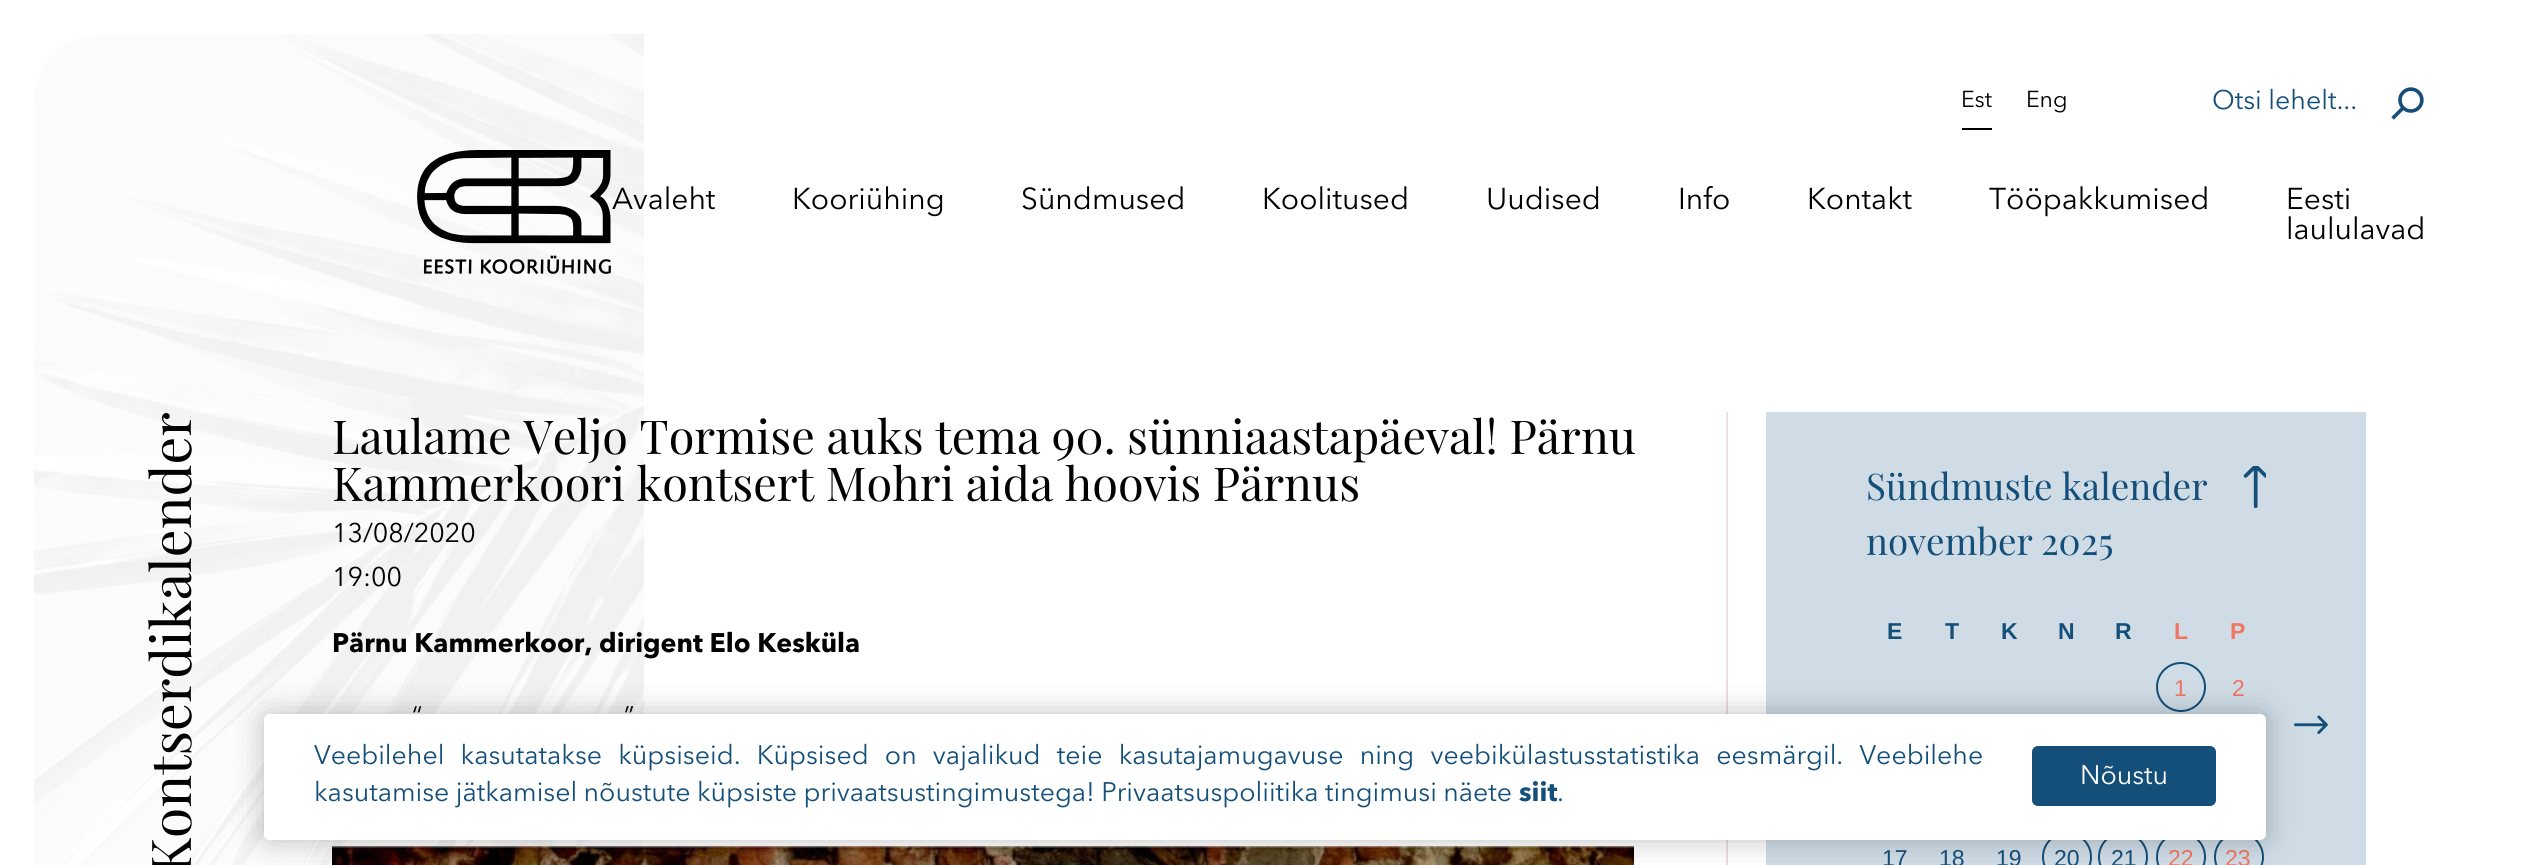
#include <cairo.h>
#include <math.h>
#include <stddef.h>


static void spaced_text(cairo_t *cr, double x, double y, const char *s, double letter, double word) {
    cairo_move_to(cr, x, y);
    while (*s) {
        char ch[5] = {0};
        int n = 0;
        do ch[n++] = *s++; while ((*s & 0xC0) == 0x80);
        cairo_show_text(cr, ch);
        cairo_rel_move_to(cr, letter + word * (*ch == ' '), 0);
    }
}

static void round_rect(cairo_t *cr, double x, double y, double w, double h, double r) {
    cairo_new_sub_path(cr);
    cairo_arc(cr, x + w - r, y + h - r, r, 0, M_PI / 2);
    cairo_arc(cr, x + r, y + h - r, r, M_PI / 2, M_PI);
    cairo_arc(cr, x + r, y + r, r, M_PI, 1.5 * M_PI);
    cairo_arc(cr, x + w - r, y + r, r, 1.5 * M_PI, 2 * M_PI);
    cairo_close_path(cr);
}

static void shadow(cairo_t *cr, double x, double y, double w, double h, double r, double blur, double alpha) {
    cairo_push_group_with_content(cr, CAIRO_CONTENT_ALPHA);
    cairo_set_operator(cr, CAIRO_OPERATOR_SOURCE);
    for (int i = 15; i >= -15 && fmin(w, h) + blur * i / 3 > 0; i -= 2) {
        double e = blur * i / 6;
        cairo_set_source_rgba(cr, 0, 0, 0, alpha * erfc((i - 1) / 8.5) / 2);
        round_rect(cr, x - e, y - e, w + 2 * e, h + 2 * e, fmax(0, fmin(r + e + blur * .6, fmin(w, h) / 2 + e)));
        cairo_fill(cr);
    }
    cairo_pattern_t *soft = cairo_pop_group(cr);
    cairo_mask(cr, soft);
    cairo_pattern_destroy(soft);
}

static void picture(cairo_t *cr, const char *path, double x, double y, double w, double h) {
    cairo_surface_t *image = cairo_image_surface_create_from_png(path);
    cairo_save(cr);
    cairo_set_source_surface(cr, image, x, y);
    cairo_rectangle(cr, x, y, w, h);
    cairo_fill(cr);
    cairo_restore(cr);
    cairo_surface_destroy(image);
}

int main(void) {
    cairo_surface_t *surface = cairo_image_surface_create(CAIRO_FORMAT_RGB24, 2530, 865);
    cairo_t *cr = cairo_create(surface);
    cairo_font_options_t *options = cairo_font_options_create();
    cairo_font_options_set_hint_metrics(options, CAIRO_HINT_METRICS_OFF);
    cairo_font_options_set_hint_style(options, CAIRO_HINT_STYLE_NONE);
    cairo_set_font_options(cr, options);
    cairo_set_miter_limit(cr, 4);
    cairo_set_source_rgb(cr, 1, 1, 1);
    cairo_paint(cr);
    picture(cr, "img1.png", 34, 34, 610, 831);
    picture(cr, "img2.png", 417, 150, 194, 124);
    cairo_select_font_face(cr, "Avenir Next", CAIRO_FONT_SLANT_NORMAL, CAIRO_FONT_WEIGHT_NORMAL);
    cairo_set_font_size(cr, 23);
    cairo_set_source_rgb(cr, 0.004, 0.004, 0.004);
    cairo_move_to(cr, 1961, 107);
    cairo_show_text(cr, "Est");
    cairo_set_source_rgb(cr, 0, 0, 0);
    cairo_rectangle(cr, 1962, 128, 30, 2);
    cairo_fill(cr);
    cairo_set_source_rgb(cr, 0.004, 0.004, 0.004);
    cairo_move_to(cr, 2026, 107);
    cairo_show_text(cr, "Eng");
    cairo_set_font_size(cr, 26.7);
    cairo_set_source_rgb(cr, 0.082, 0.31, 0.475);
    cairo_move_to(cr, 2212, 109);
    cairo_show_text(cr, "Otsi lehelt...");
    picture(cr, "img3.png", 2391, 87, 33, 33);
    cairo_set_font_size(cr, 30);
    cairo_set_source_rgb(cr, 0.004, 0.004, 0.004);
    cairo_move_to(cr, 612, 209);
    cairo_show_text(cr, "Avaleht");
    cairo_move_to(cr, 792, 209);
    cairo_show_text(cr, "Kooriühing");
    cairo_move_to(cr, 1021, 209);
    cairo_show_text(cr, "Sündmused");
    cairo_move_to(cr, 1262, 209);
    cairo_show_text(cr, "Koolitused");
    cairo_move_to(cr, 1486, 209);
    cairo_show_text(cr, "Uudised");
    cairo_move_to(cr, 1678, 209);
    cairo_show_text(cr, "Info");
    cairo_move_to(cr, 1807, 209);
    cairo_show_text(cr, "Kontakt");
    cairo_move_to(cr, 1989, 209);
    cairo_show_text(cr, "Tööpakkumised");
    cairo_move_to(cr, 2286, 209);
    cairo_show_text(cr, "Eesti");
    cairo_move_to(cr, 2286, 239);
    cairo_show_text(cr, "laululavad");
    cairo_select_font_face(cr, "Playfair Display", CAIRO_FONT_SLANT_NORMAL, CAIRO_FONT_WEIGHT_NORMAL);
    cairo_set_font_size(cr, 55);
    cairo_save(cr);
    cairo_translate(cr, 191, 874);
    cairo_rotate(cr, -90 * M_PI / 180);
    cairo_move_to(cr, 0, 0);
    cairo_show_text(cr, "Kontserdikalender");
    cairo_restore(cr);
    cairo_set_font_size(cr, 46.75);
    cairo_move_to(cr, 332, 454);
    cairo_show_text(cr, "Laulame Veljo Tormise auks tema 90. sünniaastapäeval! Pärnu");
    cairo_move_to(cr, 332, 501);
    cairo_show_text(cr, "Kammerkoori kontsert Mohri aida hoovis Pärnus");
    cairo_select_font_face(cr, "Avenir Next", CAIRO_FONT_SLANT_NORMAL, CAIRO_FONT_WEIGHT_NORMAL);
    cairo_set_font_size(cr, 26.7);
    cairo_move_to(cr, 332, 542);
    cairo_show_text(cr, "13/08/2020");
    cairo_move_to(cr, 332, 586);
    cairo_show_text(cr, "19:00");
    cairo_select_font_face(cr, "Avenir Next", CAIRO_FONT_SLANT_NORMAL, CAIRO_FONT_WEIGHT_BOLD);
    cairo_move_to(cr, 332, 652);
    cairo_show_text(cr, "Pärnu Kammerkoor, dirigent Elo Kesküla");
    cairo_select_font_face(cr, "Avenir Next", CAIRO_FONT_SLANT_NORMAL, CAIRO_FONT_WEIGHT_NORMAL);
    cairo_move_to(cr, 412, 725);
    cairo_show_text(cr, "“");
    cairo_move_to(cr, 624, 725);
    cairo_show_text(cr, "”");
    picture(cr, "img4.png", 332, 846, 1302, 19);
    cairo_set_source_rgb(cr, 0.922, 0.871, 0.886);
    cairo_rectangle(cr, 1726, 412, 2, 453);
    cairo_fill(cr);
    cairo_set_source_rgb(cr, 0.812, 0.863, 0.902);
    cairo_rectangle(cr, 1766, 412, 600, 453);
    cairo_fill(cr);
    cairo_select_font_face(cr, "Playfair Display", CAIRO_FONT_SLANT_NORMAL, CAIRO_FONT_WEIGHT_NORMAL);
    cairo_set_font_size(cr, 36.75);
    cairo_set_source_rgb(cr, 0.082, 0.31, 0.475);
    cairo_move_to(cr, 1866, 500);
    cairo_show_text(cr, "Sündmuste kalender");
    picture(cr, "img5.png", 2243, 466, 23, 43);
    cairo_move_to(cr, 1866, 555);
    cairo_show_text(cr, "november");
    cairo_move_to(cr, 2041, 555);
    cairo_show_text(cr, "2025");
    picture(cr, "img6.png", 2294, 715, 34, 19);
    cairo_select_font_face(cr, "Liberation Sans", CAIRO_FONT_SLANT_NORMAL, CAIRO_FONT_WEIGHT_BOLD);
    cairo_set_font_size(cr, 23);
    cairo_move_to(cr, 1887, 639);
    cairo_show_text(cr, "E");
    cairo_move_to(cr, 1945, 639);
    cairo_show_text(cr, "T");
    cairo_move_to(cr, 2001, 639);
    cairo_show_text(cr, "K");
    cairo_move_to(cr, 2058, 639);
    cairo_show_text(cr, "N");
    cairo_move_to(cr, 2115, 639);
    cairo_show_text(cr, "R");
    cairo_set_source_rgb(cr, 0.953, 0.459, 0.376);
    cairo_move_to(cr, 2174, 639);
    cairo_show_text(cr, "L");
    cairo_move_to(cr, 2230, 639);
    cairo_show_text(cr, "P");
    cairo_new_path(cr);
    cairo_arc(cr, 2181, 687, 24, 0, 2 * M_PI);
    cairo_set_source_rgb(cr, 0.082, 0.31, 0.475);
    cairo_stroke(cr);
    cairo_select_font_face(cr, "Liberation Sans", CAIRO_FONT_SLANT_NORMAL, CAIRO_FONT_WEIGHT_NORMAL);
    cairo_set_source_rgb(cr, 0.953, 0.459, 0.376);
    cairo_move_to(cr, 2174, 696);
    cairo_show_text(cr, "1");
    cairo_move_to(cr, 2232, 696);
    cairo_show_text(cr, "2");
    cairo_set_source_rgb(cr, 0.082, 0.31, 0.475);
    cairo_move_to(cr, 1882, 866);
    cairo_show_text(cr, "17");
    cairo_move_to(cr, 1939, 866);
    cairo_show_text(cr, "18");
    cairo_move_to(cr, 1996, 866);
    cairo_show_text(cr, "19");
    cairo_new_path(cr);
    cairo_arc(cr, 2067, 857, 24, 0, 2 * M_PI);
    cairo_stroke(cr);
    cairo_move_to(cr, 2054, 866);
    cairo_show_text(cr, "20");
    cairo_new_path(cr);
    cairo_arc(cr, 2123, 857, 24, 0, 2 * M_PI);
    cairo_stroke(cr);
    cairo_move_to(cr, 2111, 866);
    cairo_show_text(cr, "21");
    cairo_new_path(cr);
    cairo_arc(cr, 2181, 857, 24, 0, 2 * M_PI);
    cairo_stroke(cr);
    cairo_set_source_rgb(cr, 0.953, 0.459, 0.376);
    cairo_move_to(cr, 2168, 866);
    cairo_show_text(cr, "22");
    cairo_new_path(cr);
    cairo_arc(cr, 2239, 857, 24, 0, 2 * M_PI);
    cairo_set_source_rgb(cr, 0.082, 0.31, 0.475);
    cairo_stroke(cr);
    cairo_set_source_rgb(cr, 0.953, 0.459, 0.376);
    cairo_move_to(cr, 2225, 866);
    cairo_show_text(cr, "23");
    cairo_set_source_rgb(cr, 0, 0, 0);
    shadow(cr, 264, 714, 2002, 126, 6, 15, 0.25);
    cairo_set_source_rgb(cr, 1, 1, 1);
    round_rect(cr, 264, 714, 2002, 126, 6);
    cairo_fill(cr);
    cairo_select_font_face(cr, "Avenir Next", CAIRO_FONT_SLANT_NORMAL, CAIRO_FONT_WEIGHT_NORMAL);
    cairo_set_font_size(cr, 26.7);
    cairo_set_source_rgb(cr, 0.082, 0.31, 0.475);
    spaced_text(cr, 314, 764, "Veebilehel kasutatakse küpsiseid. Küpsised on vajalikud teie kasutajamugavuse ning veebikülastusstatistika eesmärgil. Veebilehe", 0, 9.5);
    spaced_text(cr, 314, 801, "kasutamise jätkamisel nõustute küpsiste privaatsustingimustega! Privaatsuspoliitika tingimusi näete", 0, -0.25);
    cairo_select_font_face(cr, "Avenir Next", CAIRO_FONT_SLANT_NORMAL, CAIRO_FONT_WEIGHT_BOLD);
    cairo_move_to(cr, 1519, 801);
    cairo_show_text(cr, "siit");
    cairo_select_font_face(cr, "Avenir Next", CAIRO_FONT_SLANT_NORMAL, CAIRO_FONT_WEIGHT_NORMAL);
    cairo_move_to(cr, 1557, 801);
    cairo_show_text(cr, ".");
    round_rect(cr, 2032, 746, 184, 60, 6);
    cairo_fill(cr);
    cairo_set_source_rgb(cr, 1, 1, 1);
    cairo_move_to(cr, 2080, 784);
    cairo_show_text(cr, "Nõustu");
    cairo_surface_write_to_png(surface, "page.png");
    cairo_font_options_destroy(options);
    cairo_destroy(cr);
    cairo_surface_destroy(surface);
    return 0;
}
